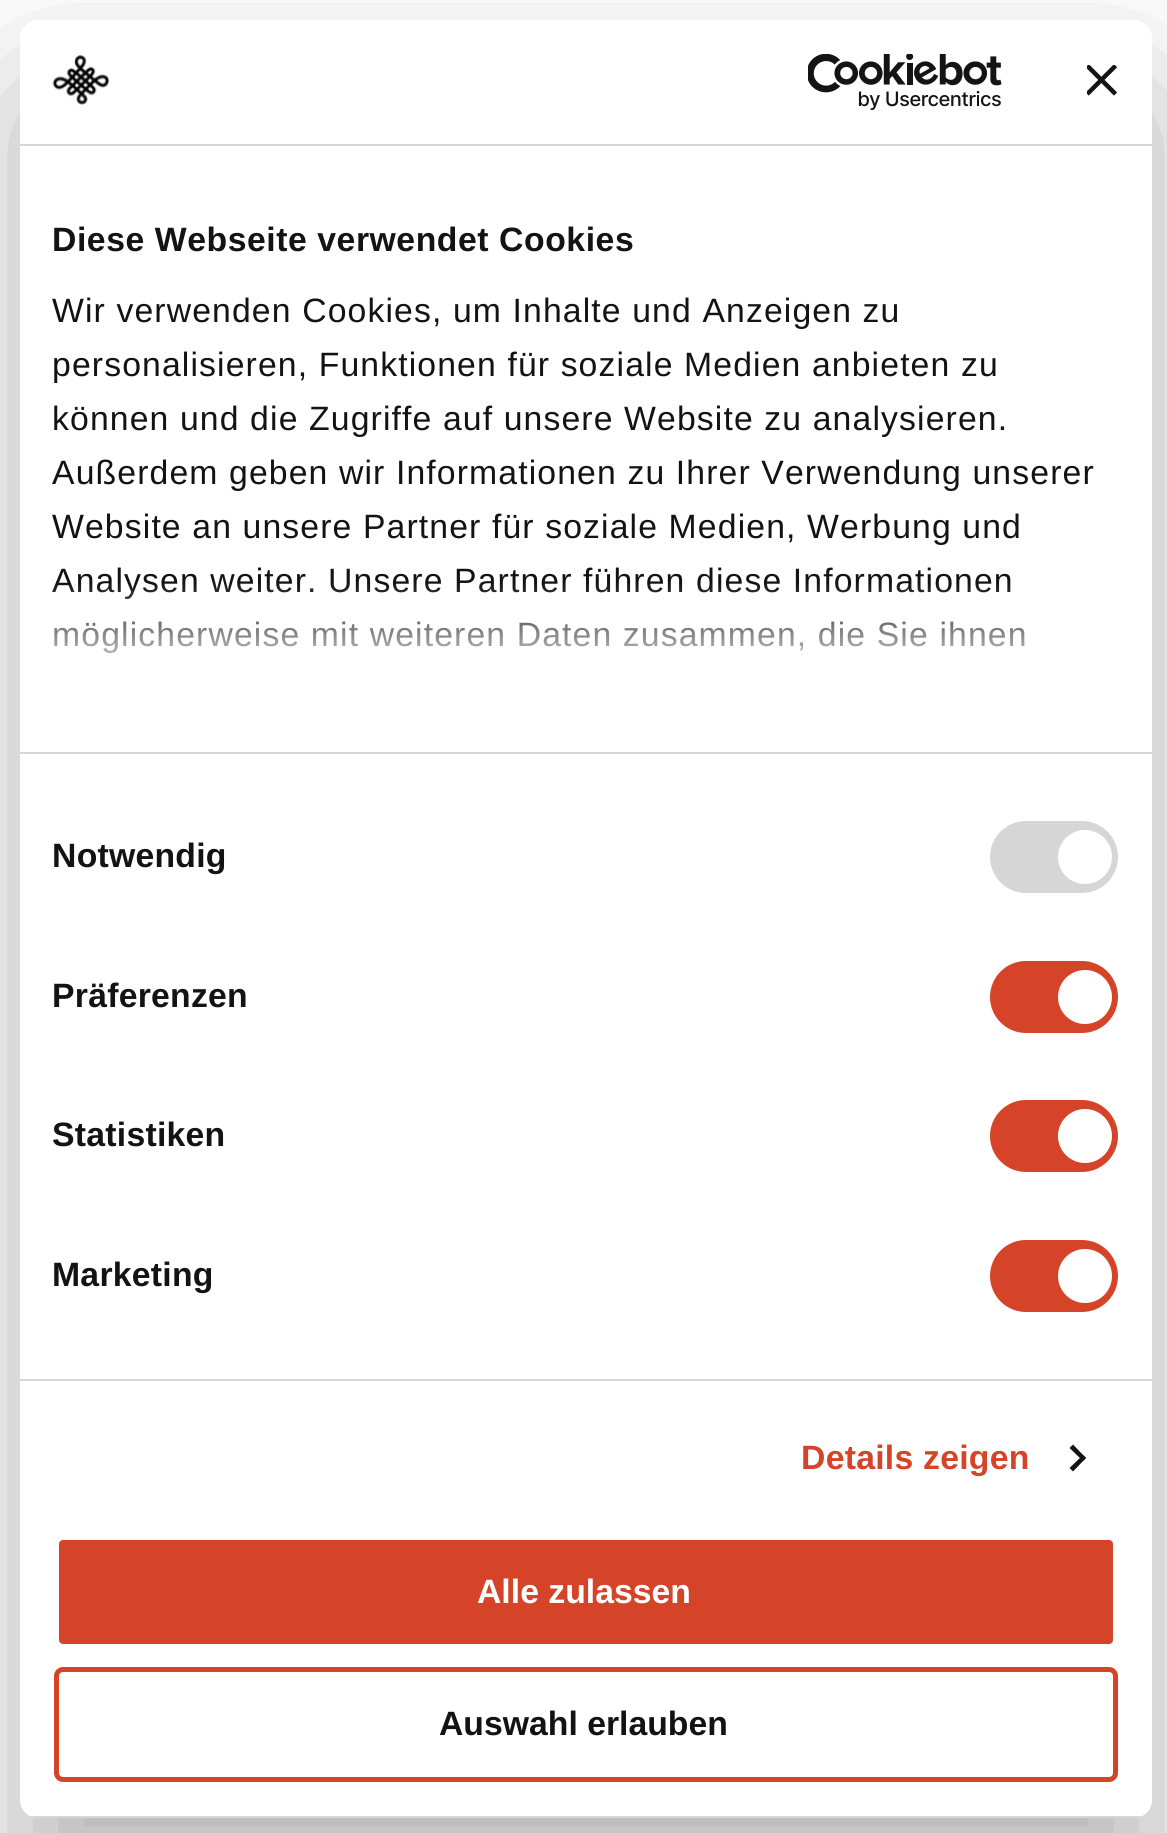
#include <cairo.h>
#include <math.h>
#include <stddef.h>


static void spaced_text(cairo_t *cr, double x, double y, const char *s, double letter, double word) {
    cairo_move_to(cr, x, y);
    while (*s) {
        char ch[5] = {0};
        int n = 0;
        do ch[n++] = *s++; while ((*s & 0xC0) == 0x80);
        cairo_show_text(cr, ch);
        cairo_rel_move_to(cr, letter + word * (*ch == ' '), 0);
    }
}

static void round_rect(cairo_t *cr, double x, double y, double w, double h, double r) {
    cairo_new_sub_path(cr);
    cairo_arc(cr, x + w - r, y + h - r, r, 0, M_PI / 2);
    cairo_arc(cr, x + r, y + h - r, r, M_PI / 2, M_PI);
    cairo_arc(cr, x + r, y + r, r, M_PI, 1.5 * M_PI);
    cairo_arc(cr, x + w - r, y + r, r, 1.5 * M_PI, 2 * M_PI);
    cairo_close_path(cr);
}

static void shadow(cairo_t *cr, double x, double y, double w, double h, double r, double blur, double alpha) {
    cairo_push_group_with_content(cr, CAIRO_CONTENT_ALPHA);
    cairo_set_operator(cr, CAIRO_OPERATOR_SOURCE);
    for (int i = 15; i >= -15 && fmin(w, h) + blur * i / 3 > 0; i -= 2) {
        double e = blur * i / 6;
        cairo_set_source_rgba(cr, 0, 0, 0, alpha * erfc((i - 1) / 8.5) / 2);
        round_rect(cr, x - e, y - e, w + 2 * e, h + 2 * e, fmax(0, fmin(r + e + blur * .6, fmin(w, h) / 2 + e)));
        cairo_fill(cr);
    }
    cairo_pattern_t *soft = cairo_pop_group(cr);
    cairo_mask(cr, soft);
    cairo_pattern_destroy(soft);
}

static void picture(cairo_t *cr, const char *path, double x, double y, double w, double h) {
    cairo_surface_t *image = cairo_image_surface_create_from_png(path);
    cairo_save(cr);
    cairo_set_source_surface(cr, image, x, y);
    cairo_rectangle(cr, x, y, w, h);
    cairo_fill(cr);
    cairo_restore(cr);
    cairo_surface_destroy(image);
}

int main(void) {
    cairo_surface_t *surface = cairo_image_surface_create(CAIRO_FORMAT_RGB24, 1167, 1833);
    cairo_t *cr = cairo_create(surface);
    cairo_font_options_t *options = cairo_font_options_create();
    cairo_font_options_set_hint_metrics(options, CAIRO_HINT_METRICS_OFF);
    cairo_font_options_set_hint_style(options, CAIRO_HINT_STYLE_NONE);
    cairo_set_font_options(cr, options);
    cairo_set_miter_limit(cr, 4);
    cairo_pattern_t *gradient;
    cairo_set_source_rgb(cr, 1, 1, 1);
    cairo_paint(cr);
    cairo_set_source_rgb(cr, 0, 0, 0);
    shadow(cr, 20, 92, 1132, 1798, 18, 76.5, 0.3);
    cairo_set_source_rgb(cr, 1, 1, 1);
    round_rect(cr, 20, 20, 1132, 1798, 18);
    cairo_fill(cr);
    cairo_set_source_rgb(cr, 0.839, 0.839, 0.839);
    cairo_rectangle(cr, 20, 144, 1132, 2);
    cairo_fill(cr);
    picture(cr, "img1.png", 52, 55, 58, 50);
    picture(cr, "img2.png", 808, 54, 194, 56);
    picture(cr, "img3.png", 1087, 65, 30, 31);
    cairo_rectangle(cr, 20, 752, 1132, 2);
    cairo_fill(cr);
    cairo_select_font_face(cr, "Liberation Sans", CAIRO_FONT_SLANT_NORMAL, CAIRO_FONT_WEIGHT_BOLD);
    cairo_set_font_size(cr, 33.75);
    cairo_set_source_rgb(cr, 0.078, 0.078, 0.078);
    spaced_text(cr, 52, 251, "Diese Webseite verwendet Cookies", 0.55, 0);
    cairo_select_font_face(cr, "Liberation Sans", CAIRO_FONT_SLANT_NORMAL, CAIRO_FONT_WEIGHT_NORMAL);
    spaced_text(cr, 52, 322, "Wir verwenden Cookies, um Inhalte und Anzeigen zu", 1.12, 0);
    spaced_text(cr, 52, 376, "personalisieren, Funktionen für soziale Medien anbieten zu", 1.12, 0);
    spaced_text(cr, 52, 430, "können und die Zugriffe auf unsere Website zu analysieren.", 1.12, 0);
    spaced_text(cr, 52, 484, "Außerdem geben wir Informationen zu Ihrer Verwendung unserer", 1.12, 0);
    spaced_text(cr, 52, 538, "Website an unsere Partner für soziale Medien, Werbung und", 1.12, 0);
    spaced_text(cr, 52, 592, "Analysen weiter. Unsere Partner führen diese Informationen", 1.12, 0);
    spaced_text(cr, 52, 646, "möglicherweise mit weiteren Daten zusammen, die Sie ihnen", 1.12, 0);
    gradient = cairo_pattern_create_linear(570, 750, 570, 582);
    cairo_pattern_add_color_stop_rgba(gradient, 0, 1, 1, 1, 1);
    cairo_pattern_add_color_stop_rgba(gradient, 0.5, 1, 1, 1, 0.8);
    cairo_pattern_add_color_stop_rgba(gradient, 1, 1, 1, 1, 0);
    cairo_set_source(cr, gradient);
    cairo_pattern_destroy(gradient);
    cairo_rectangle(cr, 52, 584, 973, 69);
    cairo_fill(cr);
    cairo_set_source_rgb(cr, 0.839, 0.839, 0.839);
    cairo_rectangle(cr, 20, 1379, 1132, 2);
    cairo_fill(cr);
    cairo_select_font_face(cr, "Liberation Sans", CAIRO_FONT_SLANT_NORMAL, CAIRO_FONT_WEIGHT_BOLD);
    cairo_set_source_rgb(cr, 0.078, 0.078, 0.078);
    spaced_text(cr, 52, 867, "Notwendig", 0.25, 0);
    cairo_set_source_rgb(cr, 0.839, 0.839, 0.839);
    round_rect(cr, 990, 821, 128, 72, 36);
    cairo_fill(cr);
    cairo_set_source_rgb(cr, 1, 1, 1);
    cairo_arc(cr, 1085, 857, 27, 0, 2 * M_PI);
    cairo_fill(cr);
    cairo_set_source_rgb(cr, 0.078, 0.078, 0.078);
    spaced_text(cr, 52, 1007, "Präferenzen", 0.25, 0);
    cairo_set_source_rgb(cr, 0.835, 0.263, 0.157);
    round_rect(cr, 990, 961, 128, 72, 36);
    cairo_fill(cr);
    cairo_set_source_rgb(cr, 1, 1, 1);
    cairo_arc(cr, 1085, 997, 27, 0, 2 * M_PI);
    cairo_fill(cr);
    cairo_set_source_rgb(cr, 0.078, 0.078, 0.078);
    spaced_text(cr, 52, 1146, "Statistiken", 0.25, 0);
    cairo_set_source_rgb(cr, 0.835, 0.263, 0.157);
    round_rect(cr, 990, 1100, 128, 72, 36);
    cairo_fill(cr);
    cairo_set_source_rgb(cr, 1, 1, 1);
    cairo_arc(cr, 1085, 1136, 27, 0, 2 * M_PI);
    cairo_fill(cr);
    cairo_set_source_rgb(cr, 0.078, 0.078, 0.078);
    spaced_text(cr, 52, 1286, "Marketing", 0.25, 0);
    cairo_set_source_rgb(cr, 0.835, 0.263, 0.157);
    round_rect(cr, 990, 1240, 128, 72, 36);
    cairo_fill(cr);
    cairo_set_source_rgb(cr, 1, 1, 1);
    cairo_arc(cr, 1085, 1276, 27, 0, 2 * M_PI);
    cairo_fill(cr);
    cairo_set_source_rgb(cr, 0.835, 0.263, 0.157);
    spaced_text(cr, 801, 1469, "Details zeigen", 0.25, 0);
    cairo_set_source_rgb(cr, 0.078, 0.078, 0.078);
    cairo_new_path(cr);
    cairo_move_to(cr, 1073, 1444.5);
    cairo_line_to(cr, 1086, 1458);
    cairo_line_to(cr, 1083, 1461);
    cairo_line_to(cr, 1069.5, 1448);
    cairo_close_path(cr);
    cairo_fill(cr);
    cairo_new_path(cr);
    cairo_move_to(cr, 1083, 1455);
    cairo_line_to(cr, 1086, 1458);
    cairo_line_to(cr, 1073, 1471.5);
    cairo_line_to(cr, 1069.5, 1468);
    cairo_close_path(cr);
    cairo_fill(cr);
    cairo_save(cr);
    round_rect(cr, 20, 20, 1132, 1798, 18);
    cairo_clip(cr);
    cairo_set_source_rgb(cr, 0.839, 0.839, 0.839);
    cairo_rectangle(cr, 30, 1816, 1112, 2);
    cairo_fill(cr);
    cairo_restore(cr);
    cairo_set_source_rgb(cr, 0.835, 0.263, 0.157);
    round_rect(cr, 56.5, 1537.5, 1059, 109, 6.5);
    cairo_fill_preserve(cr);
    cairo_set_source_rgb(cr, 1, 1, 1);
    cairo_set_line_width(cr, 5);
    cairo_stroke(cr);
    cairo_move_to(cr, 477, 1603);
    cairo_show_text(cr, "Alle zulassen");
    round_rect(cr, 56.5, 1669.5, 1059, 110, 6.5);
    cairo_set_source_rgb(cr, 0.835, 0.263, 0.157);
    cairo_stroke(cr);
    cairo_set_source_rgb(cr, 0.078, 0.078, 0.078);
    cairo_move_to(cr, 439, 1735);
    cairo_show_text(cr, "Auswahl erlauben");
    cairo_surface_write_to_png(surface, "page.png");
    cairo_font_options_destroy(options);
    cairo_destroy(cr);
    cairo_surface_destroy(surface);
    return 0;
}
